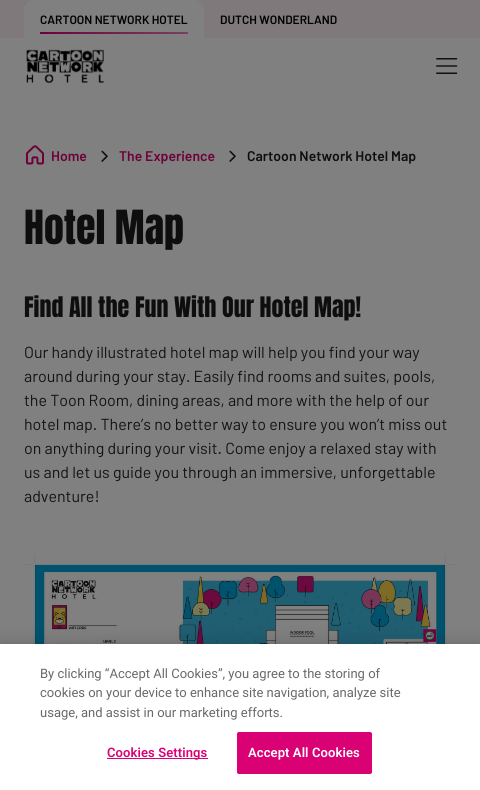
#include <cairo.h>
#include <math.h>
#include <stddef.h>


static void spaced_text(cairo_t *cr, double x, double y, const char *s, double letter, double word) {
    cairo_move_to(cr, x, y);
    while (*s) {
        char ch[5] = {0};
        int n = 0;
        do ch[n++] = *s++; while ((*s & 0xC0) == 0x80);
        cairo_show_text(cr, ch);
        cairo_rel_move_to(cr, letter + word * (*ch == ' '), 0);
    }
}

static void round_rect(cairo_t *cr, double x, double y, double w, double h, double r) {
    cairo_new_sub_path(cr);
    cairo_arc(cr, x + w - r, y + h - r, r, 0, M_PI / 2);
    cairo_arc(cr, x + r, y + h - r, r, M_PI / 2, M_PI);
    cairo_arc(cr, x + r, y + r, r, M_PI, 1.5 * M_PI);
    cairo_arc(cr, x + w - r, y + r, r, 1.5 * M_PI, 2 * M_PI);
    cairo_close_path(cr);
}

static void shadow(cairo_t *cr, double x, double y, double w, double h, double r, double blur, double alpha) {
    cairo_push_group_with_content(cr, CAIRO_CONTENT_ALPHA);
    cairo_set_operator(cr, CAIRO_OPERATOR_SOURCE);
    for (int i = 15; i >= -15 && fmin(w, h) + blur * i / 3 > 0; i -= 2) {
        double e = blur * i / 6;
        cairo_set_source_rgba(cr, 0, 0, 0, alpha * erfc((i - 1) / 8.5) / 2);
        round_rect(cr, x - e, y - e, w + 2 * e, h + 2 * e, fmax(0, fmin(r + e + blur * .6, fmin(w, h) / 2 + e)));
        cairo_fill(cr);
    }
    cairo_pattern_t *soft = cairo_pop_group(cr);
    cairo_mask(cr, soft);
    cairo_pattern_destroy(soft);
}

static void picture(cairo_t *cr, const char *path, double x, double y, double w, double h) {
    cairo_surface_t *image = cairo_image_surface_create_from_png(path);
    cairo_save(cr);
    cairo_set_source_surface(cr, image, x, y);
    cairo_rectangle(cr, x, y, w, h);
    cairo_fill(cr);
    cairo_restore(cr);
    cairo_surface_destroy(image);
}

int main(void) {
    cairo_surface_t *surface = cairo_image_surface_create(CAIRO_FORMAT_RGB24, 480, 790);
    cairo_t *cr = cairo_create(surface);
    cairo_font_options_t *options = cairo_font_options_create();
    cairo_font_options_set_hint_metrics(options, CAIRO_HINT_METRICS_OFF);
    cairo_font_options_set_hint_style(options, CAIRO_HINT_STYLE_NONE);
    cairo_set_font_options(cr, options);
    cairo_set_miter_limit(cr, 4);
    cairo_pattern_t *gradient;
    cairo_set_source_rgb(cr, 0.502, 0.502, 0.502);
    cairo_paint(cr);
    cairo_set_source_rgb(cr, 0.498, 0.475, 0.486);
    cairo_rectangle(cr, 0, 0, 480, 38);
    cairo_fill(cr);
    cairo_set_source_rgb(cr, 0.502, 0.502, 0.502);
    cairo_new_path(cr);
    cairo_move_to(cr, 34, 0);
    cairo_line_to(cr, 194, 0);
    cairo_curve_to(cr, 199.5, 0, 204, 4.5, 204, 10);
    cairo_line_to(cr, 204, 38);
    cairo_line_to(cr, 24, 38);
    cairo_line_to(cr, 24, 10);
    cairo_curve_to(cr, 24, 4.5, 28.5, 0, 34, 0);
    cairo_close_path(cr);
    cairo_fill(cr);
    cairo_select_font_face(cr, "Barlow SemiBold", CAIRO_FONT_SLANT_NORMAL, CAIRO_FONT_WEIGHT_NORMAL);
    cairo_set_font_size(cr, 12);
    cairo_set_source_rgb(cr, 0, 0, 0);
    cairo_move_to(cr, 40, 24);
    cairo_show_text(cr, "CARTOON NETWORK HOTEL");
    gradient = cairo_pattern_create_linear(58, 65, 170, 0.8);
    cairo_pattern_add_color_stop_rgba(gradient, 0, 0.427, 0.004, 0.231, 1);
    cairo_pattern_add_color_stop_rgba(gradient, 1, 0.475, 0.251, 0.369, 1);
    cairo_set_source(cr, gradient);
    cairo_pattern_destroy(gradient);
    cairo_rectangle(cr, 40, 32, 148, 2);
    cairo_fill(cr);
    cairo_set_source_rgb(cr, 0, 0, 0);
    cairo_move_to(cr, 220, 24);
    cairo_show_text(cr, "DUTCH WONDERLAND");
    picture(cr, "img1.png", 26, 49, 80, 35);
    picture(cr, "img2.png", 436, 58, 22, 16);
    picture(cr, "img3.png", 26, 145, 18, 20);
    cairo_set_font_size(cr, 14);
    cairo_set_source_rgb(cr, 0.427, 0.004, 0.231);
    cairo_move_to(cr, 51, 161);
    cairo_show_text(cr, "Home");
    picture(cr, "img4.png", 101, 150, 7, 12);
    cairo_move_to(cr, 119, 161);
    cairo_show_text(cr, "The Experience");
    picture(cr, "img4.png", 229, 150, 7, 12);
    cairo_set_source_rgb(cr, 0.055, 0.055, 0.055);
    cairo_move_to(cr, 247, 161);
    cairo_show_text(cr, "Cartoon Network Hotel Map");
    cairo_select_font_face(cr, "Anton", CAIRO_FONT_SLANT_NORMAL, CAIRO_FONT_WEIGHT_NORMAL);
    cairo_set_font_size(cr, 40);
    cairo_move_to(cr, 24, 244);
    cairo_show_text(cr, "Hotel Map");
    cairo_set_font_size(cr, 24);
    cairo_move_to(cr, 24, 317);
    cairo_show_text(cr, "Find All the Fun With Our Hotel Map!");
    cairo_select_font_face(cr, "Barlow", CAIRO_FONT_SLANT_NORMAL, CAIRO_FONT_WEIGHT_NORMAL);
    cairo_set_font_size(cr, 16);
    cairo_set_source_rgb(cr, 0.067, 0.075, 0.082);
    cairo_move_to(cr, 24, 358);
    cairo_show_text(cr, "Our handy illustrated hotel map will help you find your way");
    cairo_move_to(cr, 24, 382);
    cairo_show_text(cr, "around during your stay. Easily find rooms and suites, pools,");
    cairo_move_to(cr, 24, 406);
    cairo_show_text(cr, "the Toon Room, dining areas, and more with the help of our");
    cairo_move_to(cr, 24, 430);
    cairo_show_text(cr, "hotel map. There’s no better way to ensure you won’t miss out");
    cairo_move_to(cr, 24, 454);
    cairo_show_text(cr, "on anything during your visit. Come enjoy a relaxed stay with");
    cairo_move_to(cr, 24, 478);
    cairo_show_text(cr, "us and let us guide you through an immersive, unforgettable");
    cairo_move_to(cr, 24, 502);
    cairo_show_text(cr, "adventure!");
    picture(cr, "img5.png", 24, 554, 432, 90);
    cairo_set_source_rgb(cr, 0, 0, 0);
    shadow(cr, 0, 644, 480, 146, 0, 9, 0.2);
    cairo_set_source_rgb(cr, 1, 1, 1);
    cairo_rectangle(cr, 0, 644, 480, 146);
    cairo_fill(cr);
    cairo_select_font_face(cr, "Roboto", CAIRO_FONT_SLANT_NORMAL, CAIRO_FONT_WEIGHT_NORMAL);
    cairo_set_font_size(cr, 13);
    cairo_set_source_rgb(cr, 0.412, 0.412, 0.412);
    cairo_move_to(cr, 40, 678);
    cairo_show_text(cr, "By clicking “Accept All Cookies”, you agree to the storing of");
    cairo_move_to(cr, 40, 697);
    cairo_show_text(cr, "cookies on your device to enhance site navigation, analyze site");
    cairo_move_to(cr, 40, 717);
    cairo_show_text(cr, "usage, and assist in our marketing efforts.");
    cairo_set_source_rgb(cr, 0.855, 0.004, 0.459);
    cairo_rectangle(cr, 107, 758, 101, 1);
    cairo_fill(cr);
    cairo_select_font_face(cr, "Roboto SemiBold", CAIRO_FONT_SLANT_NORMAL, CAIRO_FONT_WEIGHT_NORMAL);
    spaced_text(cr, 107, 757, "Cookies Settings", 0.1, 0);
    round_rect(cr, 237.5, 732.5, 134, 41, 1.5);
    cairo_fill_preserve(cr);
    cairo_set_line_width(cr, 1);
    cairo_stroke(cr);
    cairo_set_source_rgb(cr, 1, 1, 1);
    spaced_text(cr, 248, 757, "Accept All Cookies", 0.1, 0);
    cairo_surface_write_to_png(surface, "page.png");
    cairo_font_options_destroy(options);
    cairo_destroy(cr);
    cairo_surface_destroy(surface);
    return 0;
}
